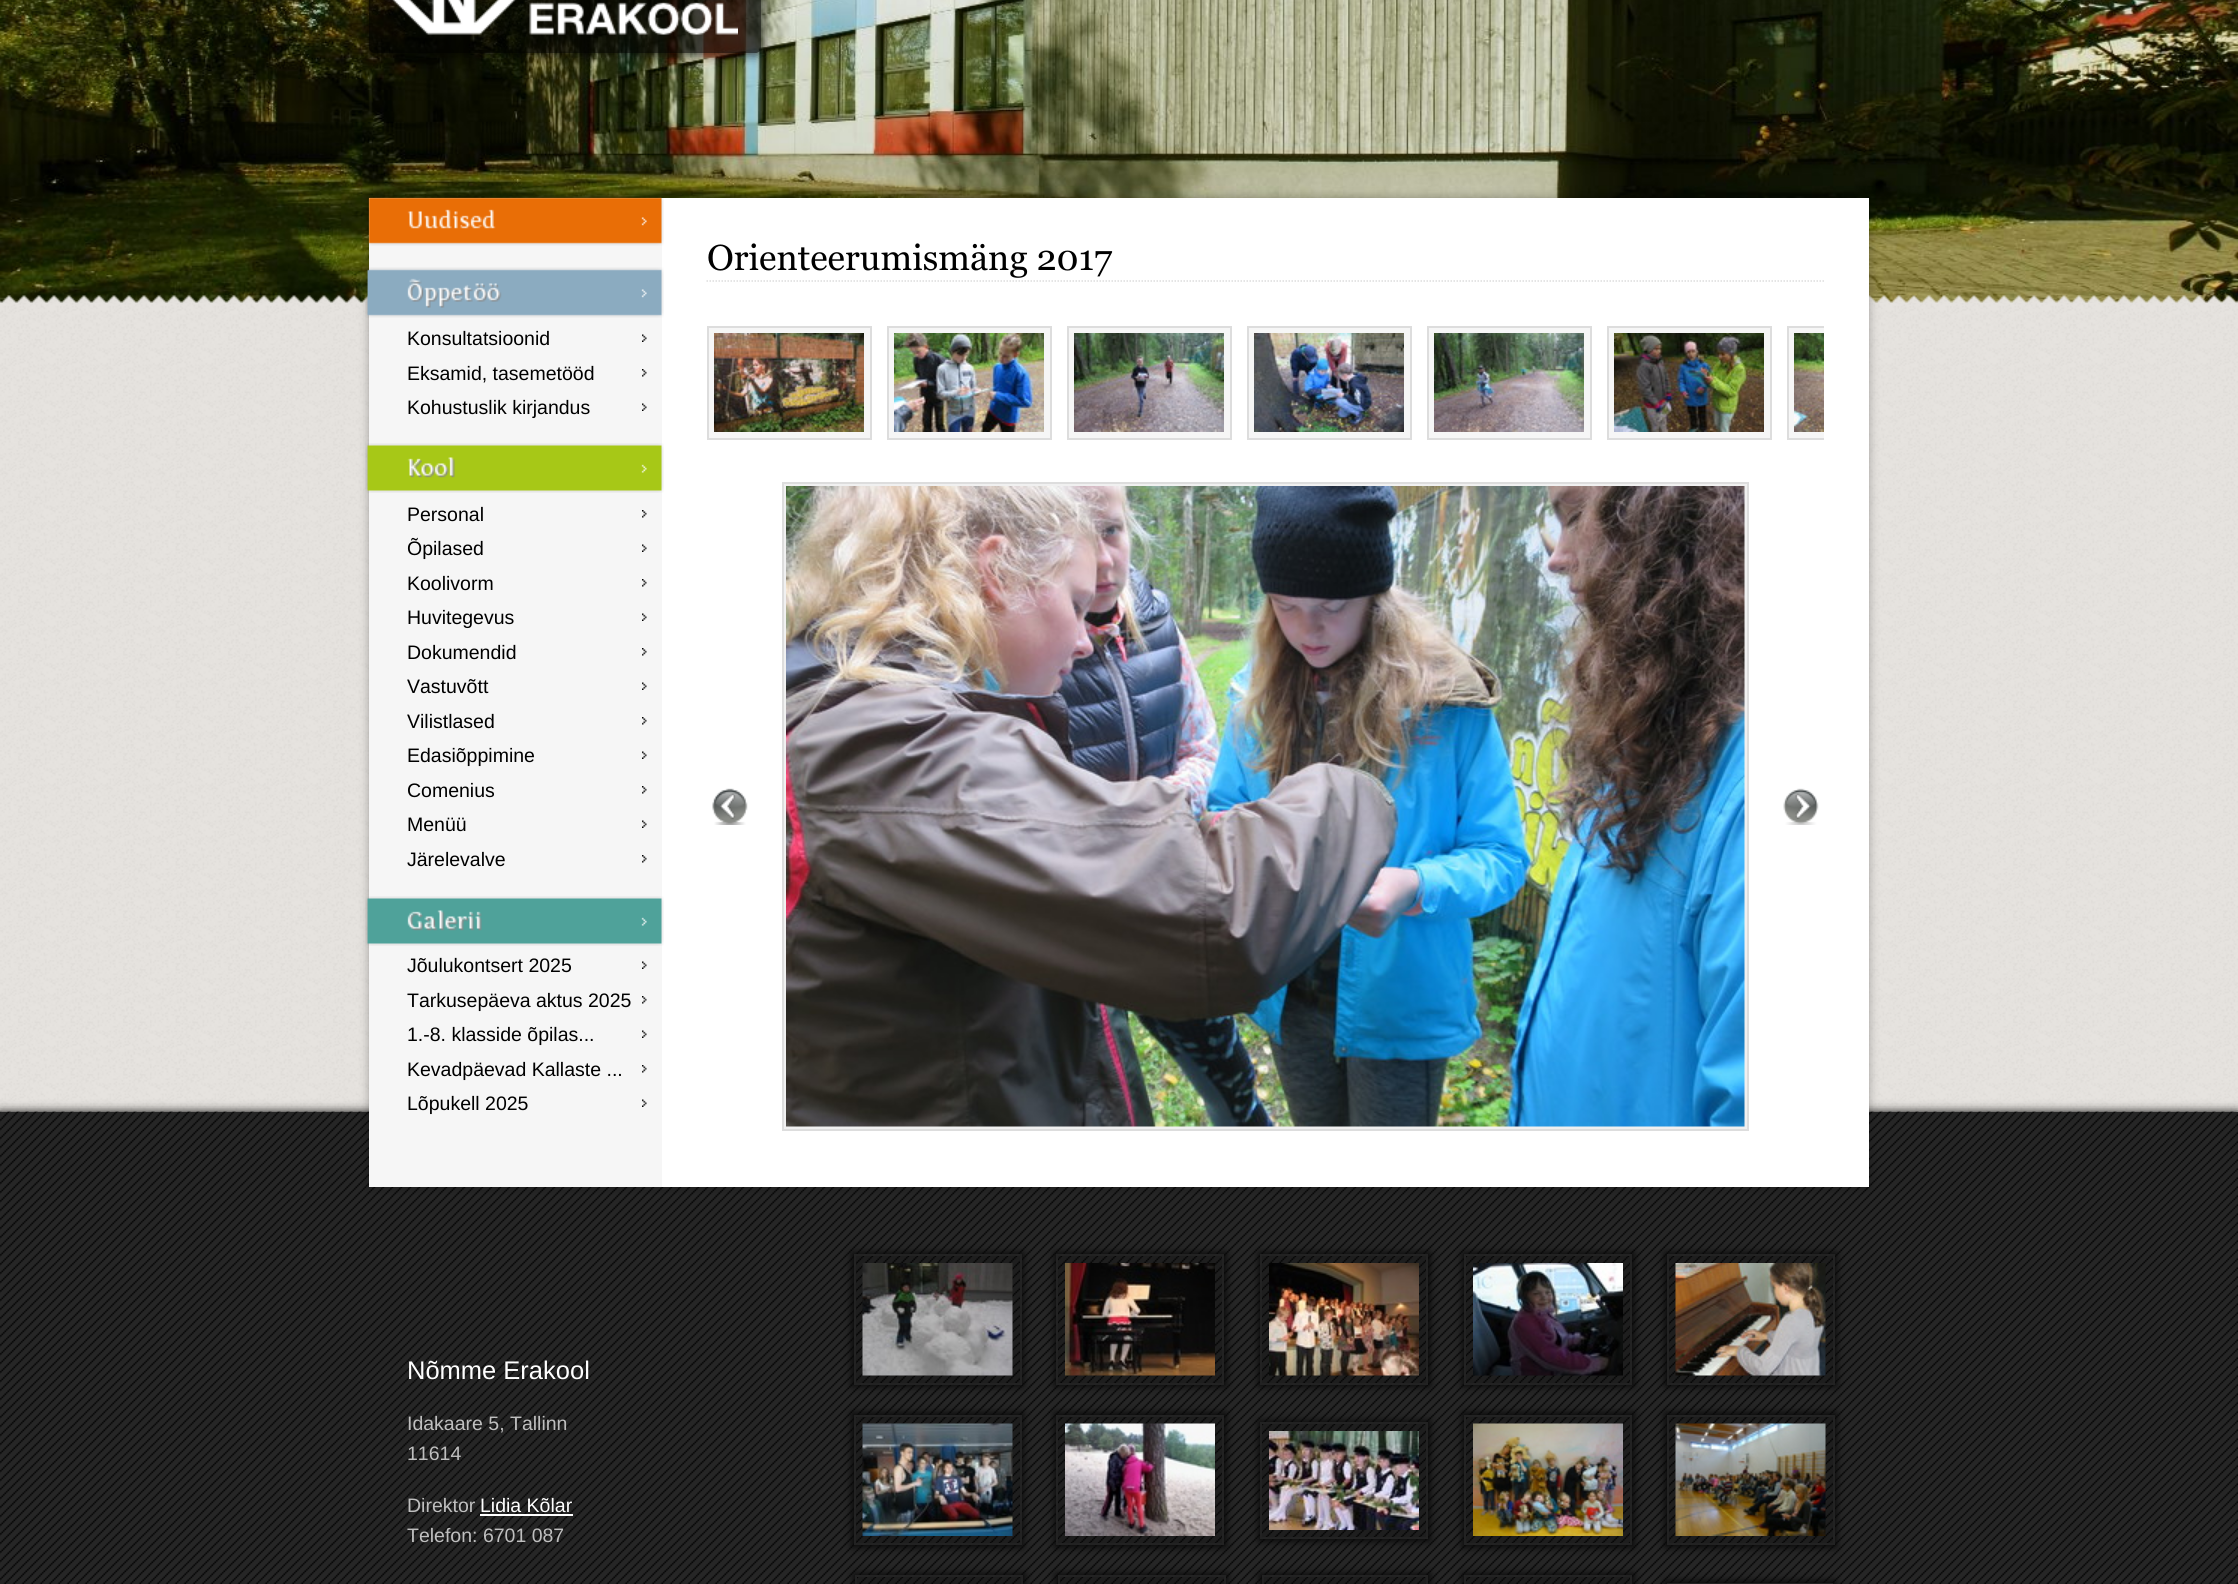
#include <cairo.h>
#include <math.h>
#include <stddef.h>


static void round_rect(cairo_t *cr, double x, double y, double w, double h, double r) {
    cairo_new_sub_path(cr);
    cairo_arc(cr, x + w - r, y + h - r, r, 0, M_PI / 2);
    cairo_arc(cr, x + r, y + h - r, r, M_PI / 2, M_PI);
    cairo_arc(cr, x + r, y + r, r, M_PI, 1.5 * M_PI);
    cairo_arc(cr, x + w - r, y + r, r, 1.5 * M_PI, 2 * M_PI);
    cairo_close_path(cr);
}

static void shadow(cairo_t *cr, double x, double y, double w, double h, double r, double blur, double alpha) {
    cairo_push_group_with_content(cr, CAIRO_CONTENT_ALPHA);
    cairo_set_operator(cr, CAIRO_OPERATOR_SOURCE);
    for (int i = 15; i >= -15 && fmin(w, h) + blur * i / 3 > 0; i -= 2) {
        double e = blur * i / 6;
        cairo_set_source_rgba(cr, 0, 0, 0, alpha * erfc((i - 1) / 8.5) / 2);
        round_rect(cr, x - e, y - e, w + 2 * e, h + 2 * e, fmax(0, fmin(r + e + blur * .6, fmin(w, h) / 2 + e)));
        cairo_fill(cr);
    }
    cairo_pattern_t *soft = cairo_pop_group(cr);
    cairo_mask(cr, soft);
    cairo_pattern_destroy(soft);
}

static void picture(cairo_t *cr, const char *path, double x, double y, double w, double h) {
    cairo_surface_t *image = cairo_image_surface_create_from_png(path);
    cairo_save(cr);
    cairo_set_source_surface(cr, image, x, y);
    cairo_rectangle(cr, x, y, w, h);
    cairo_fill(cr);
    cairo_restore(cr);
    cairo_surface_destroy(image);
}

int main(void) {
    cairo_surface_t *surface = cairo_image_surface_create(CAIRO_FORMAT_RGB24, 2238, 1584);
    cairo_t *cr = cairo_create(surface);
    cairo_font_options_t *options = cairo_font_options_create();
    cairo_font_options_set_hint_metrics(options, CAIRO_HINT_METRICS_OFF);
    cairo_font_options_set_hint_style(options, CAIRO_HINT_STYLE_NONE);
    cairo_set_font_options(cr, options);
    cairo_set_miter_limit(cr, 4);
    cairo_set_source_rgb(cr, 1, 1, 1);
    cairo_paint(cr);
    picture(cr, "img1.png", 0, 303, 2238, 809);
    picture(cr, "img3.png", 0, 0, 2238, 303);
    cairo_save(cr);
    cairo_set_fill_rule(cr, CAIRO_FILL_RULE_EVEN_ODD);
    cairo_new_path(cr);
    cairo_move_to(cr, 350, 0);
    cairo_line_to(cr, 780, 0);
    cairo_line_to(cr, 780, 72);
    cairo_line_to(cr, 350, 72);
    cairo_close_path(cr);
    cairo_move_to(cr, 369, -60);
    cairo_line_to(cr, 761, -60);
    cairo_line_to(cr, 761, 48);
    cairo_curve_to(cr, 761, 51, 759, 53, 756, 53);
    cairo_line_to(cr, 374, 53);
    cairo_curve_to(cr, 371, 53, 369, 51, 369, 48);
    cairo_close_path(cr);
    cairo_clip(cr);
    cairo_set_source_rgb(cr, 0, 0, 0);
    shadow(cr, 366, -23, 398, 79, 8, 5, 0.6);
    cairo_restore(cr);
    cairo_set_source_rgba(cr, 0, 0, 0, 0.7);
    cairo_new_path(cr);
    cairo_move_to(cr, 369, -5);
    cairo_line_to(cr, 761, -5);
    cairo_line_to(cr, 761, 48);
    cairo_curve_to(cr, 761, 51, 759, 53, 756, 53);
    cairo_line_to(cr, 374, 53);
    cairo_curve_to(cr, 371, 53, 369, 51, 369, 48);
    cairo_close_path(cr);
    cairo_fill(cr);
    picture(cr, "img2.png", 391, 0, 347, 35);
    picture(cr, "img20.png", 0, 295, 2238, 8);
    cairo_set_source_rgb(cr, 0, 0, 0);
    shadow(cr, 0, 1112, 2238, 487, 0, 5, 1);
    cairo_set_source_rgb(cr, 0.149, 0.149, 0.149);
    cairo_rectangle(cr, 0, 1112, 2238, 472);
    cairo_fill(cr);
    picture(cr, "img21.png", 0, 1111, 2238, 473);
    cairo_set_source_rgb(cr, 0, 0, 0);
    shadow(cr, 369, 198, 1500, 989, 0, 5, 0.3);
    cairo_set_source_rgb(cr, 1, 1, 1);
    cairo_rectangle(cr, 662, 198, 1207, 989);
    cairo_fill(cr);
    cairo_new_path(cr);
    cairo_move_to(cr, 706.5, 281);
    cairo_line_to(cr, 1824, 281);
    cairo_set_source_rgb(cr, 0.867, 0.867, 0.867);
    cairo_set_line_width(cr, 1.5);
    cairo_set_dash(cr, (double[]){1.5, 1.5}, 2, 0);
    cairo_stroke(cr);
    cairo_select_font_face(cr, "Georgia", CAIRO_FONT_SLANT_NORMAL, CAIRO_FONT_WEIGHT_NORMAL);
    cairo_set_font_size(cr, 36);
    cairo_set_source_rgb(cr, 0, 0, 0);
    cairo_move_to(cr, 707, 270);
    cairo_show_text(cr, "Orienteerumismäng 2017");
    cairo_set_source_rgb(cr, 0.961, 0.961, 0.961);
    cairo_rectangle(cr, 708, 327, 163, 112);
    cairo_fill_preserve(cr);
    cairo_set_source_rgb(cr, 0.867, 0.867, 0.867);
    cairo_set_line_width(cr, 2);
    cairo_set_dash(cr, NULL, 0, 0);
    cairo_stroke(cr);
    picture(cr, "img4.png", 714, 333, 150, 99);
    cairo_set_source_rgb(cr, 0.961, 0.961, 0.961);
    cairo_rectangle(cr, 888, 327, 163, 112);
    cairo_fill_preserve(cr);
    cairo_set_source_rgb(cr, 0.867, 0.867, 0.867);
    cairo_stroke(cr);
    picture(cr, "img5.png", 894, 333, 150, 99);
    cairo_set_source_rgb(cr, 0.961, 0.961, 0.961);
    cairo_rectangle(cr, 1068, 327, 163, 112);
    cairo_fill_preserve(cr);
    cairo_set_source_rgb(cr, 0.867, 0.867, 0.867);
    cairo_stroke(cr);
    picture(cr, "img6.png", 1074, 333, 150, 99);
    cairo_set_source_rgb(cr, 0.961, 0.961, 0.961);
    cairo_rectangle(cr, 1248, 327, 163, 112);
    cairo_fill_preserve(cr);
    cairo_set_source_rgb(cr, 0.867, 0.867, 0.867);
    cairo_stroke(cr);
    picture(cr, "img7.png", 1254, 333, 150, 99);
    cairo_set_source_rgb(cr, 0.961, 0.961, 0.961);
    cairo_rectangle(cr, 1428, 327, 163, 112);
    cairo_fill_preserve(cr);
    cairo_set_source_rgb(cr, 0.867, 0.867, 0.867);
    cairo_stroke(cr);
    picture(cr, "img8.png", 1434, 333, 150, 99);
    cairo_set_source_rgb(cr, 0.961, 0.961, 0.961);
    cairo_rectangle(cr, 1608, 327, 163, 112);
    cairo_fill_preserve(cr);
    cairo_set_source_rgb(cr, 0.867, 0.867, 0.867);
    cairo_stroke(cr);
    picture(cr, "img9.png", 1614, 333, 150, 99);
    cairo_set_source_rgb(cr, 0.961, 0.961, 0.961);
    cairo_rectangle(cr, 1789, 328, 35, 110);
    cairo_fill(cr);
    cairo_save(cr);
    cairo_rectangle(cr, 707, 326, 1117, 118);
    cairo_clip(cr);
    cairo_rectangle(cr, 1788, 327, 163, 112);
    cairo_set_source_rgb(cr, 0.867, 0.867, 0.867);
    cairo_stroke(cr);
    cairo_restore(cr);
    picture(cr, "img10.png", 1794, 333, 30, 99);
    cairo_set_source_rgb(cr, 0.941, 0.941, 0.941);
    cairo_rectangle(cr, 783, 483, 965, 647);
    cairo_fill_preserve(cr);
    cairo_set_source_rgb(cr, 0.867, 0.867, 0.867);
    cairo_stroke(cr);
    picture(cr, "img11.png", 712, 788, 36, 37);
    picture(cr, "img12.png", 786, 486, 959, 641);
    picture(cr, "img13.png", 1783, 788, 36, 37);
    cairo_set_source_rgb(cr, 0.961, 0.961, 0.961);
    cairo_rectangle(cr, 369, 198, 293, 989);
    cairo_fill(cr);
    picture(cr, "img14.png", 367, 197, 297, 49);
    picture(cr, "img15.png", 365, 267, 299, 51);
    picture(cr, "img16.png", 642, 334, 5, 8);
    cairo_select_font_face(cr, "Liberation Sans", CAIRO_FONT_SLANT_NORMAL, CAIRO_FONT_WEIGHT_NORMAL);
    cairo_set_font_size(cr, 19.5);
    cairo_set_source_rgb(cr, 0, 0, 0);
    cairo_move_to(cr, 407, 345);
    cairo_show_text(cr, "Konsultatsioonid");
    picture(cr, "img17.png", 642, 369, 5, 8);
    cairo_move_to(cr, 407, 380);
    cairo_show_text(cr, "Eksamid, tasemetööd");
    picture(cr, "img16.png", 642, 403, 5, 8);
    cairo_move_to(cr, 407, 414);
    cairo_show_text(cr, "Kohustuslik kirjandus");
    picture(cr, "img18.png", 365, 443, 299, 50);
    picture(cr, "img17.png", 642, 510, 5, 8);
    cairo_move_to(cr, 407, 521);
    cairo_show_text(cr, "Personal");
    picture(cr, "img16.png", 642, 544, 5, 8);
    cairo_move_to(cr, 407, 555);
    cairo_show_text(cr, "Õpilased");
    picture(cr, "img17.png", 642, 579, 5, 8);
    cairo_move_to(cr, 407, 590);
    cairo_show_text(cr, "Koolivorm");
    picture(cr, "img16.png", 642, 613, 5, 8);
    cairo_move_to(cr, 407, 624);
    cairo_show_text(cr, "Huvitegevus");
    picture(cr, "img17.png", 642, 648, 5, 8);
    cairo_move_to(cr, 407, 659);
    cairo_show_text(cr, "Dokumendid");
    picture(cr, "img16.png", 642, 682, 5, 8);
    cairo_move_to(cr, 407, 693);
    cairo_show_text(cr, "Vastuvõtt");
    picture(cr, "img17.png", 642, 717, 5, 8);
    cairo_move_to(cr, 407, 728);
    cairo_show_text(cr, "Vilistlased");
    picture(cr, "img16.png", 642, 751, 5, 8);
    cairo_move_to(cr, 407, 762);
    cairo_show_text(cr, "Edasiõppimine");
    picture(cr, "img17.png", 642, 786, 5, 8);
    cairo_move_to(cr, 407, 797);
    cairo_show_text(cr, "Comenius");
    picture(cr, "img16.png", 642, 820, 5, 8);
    cairo_move_to(cr, 407, 831);
    cairo_show_text(cr, "Menüü");
    picture(cr, "img17.png", 642, 855, 5, 8);
    cairo_move_to(cr, 407, 866);
    cairo_show_text(cr, "Järelevalve");
    picture(cr, "img19.png", 365, 896, 299, 50);
    picture(cr, "img16.png", 642, 961, 5, 8);
    cairo_move_to(cr, 407, 972);
    cairo_show_text(cr, "Jõulukontsert 2025");
    picture(cr, "img17.png", 642, 996, 5, 8);
    cairo_move_to(cr, 407, 1007);
    cairo_show_text(cr, "Tarkusepäeva aktus 2025");
    picture(cr, "img16.png", 642, 1030, 5, 8);
    cairo_move_to(cr, 407, 1041);
    cairo_show_text(cr, "1.-8. klasside õpilas...");
    picture(cr, "img17.png", 642, 1065, 5, 8);
    cairo_move_to(cr, 407, 1076);
    cairo_show_text(cr, "Kevadpäevad Kallaste ...");
    picture(cr, "img16.png", 642, 1099, 5, 8);
    cairo_move_to(cr, 407, 1110);
    cairo_show_text(cr, "Lõpukell 2025");
    cairo_set_font_size(cr, 25.5);
    cairo_set_source_rgb(cr, 1, 1, 1);
    cairo_move_to(cr, 407, 1379);
    cairo_show_text(cr, "Nõmme Erakool");
    cairo_set_font_size(cr, 19.5);
    cairo_set_source_rgb(cr, 0.749, 0.749, 0.749);
    cairo_move_to(cr, 407, 1430);
    cairo_show_text(cr, "Idakaare 5, Tallinn");
    cairo_move_to(cr, 407, 1460);
    cairo_show_text(cr, "11614");
    cairo_move_to(cr, 407, 1512);
    cairo_show_text(cr, "Direktor");
    cairo_set_source_rgb(cr, 1, 1, 1);
    cairo_move_to(cr, 480, 1512);
    cairo_show_text(cr, "Lidia Kõlar");
    cairo_rectangle(cr, 480, 1514, 93, 2);
    cairo_fill(cr);
    cairo_set_source_rgb(cr, 0.749, 0.749, 0.749);
    cairo_move_to(cr, 407, 1542);
    cairo_show_text(cr, "Telefon: 6701 087");
    cairo_save(cr);
    cairo_set_fill_rule(cr, CAIRO_FILL_RULE_EVEN_ODD);
    cairo_new_path(cr);
    cairo_move_to(cr, 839, 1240);
    cairo_line_to(cr, 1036, 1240);
    cairo_line_to(cr, 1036, 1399);
    cairo_line_to(cr, 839, 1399);
    cairo_close_path(cr);
    cairo_move_to(cr, 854, 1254);
    cairo_line_to(cr, 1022, 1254);
    cairo_line_to(cr, 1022, 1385);
    cairo_line_to(cr, 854, 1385);
    cairo_close_path(cr);
    cairo_clip(cr);
    cairo_set_source_rgb(cr, 0.031, 0.031, 0.031);
    shadow(cr, 852, 1253, 171, 133, 0, 4, 1);
    cairo_restore(cr);
    cairo_set_source_rgba(cr, 0, 0, 0, 0.2);
    cairo_rectangle(cr, 855, 1255, 166, 129);
    cairo_fill_preserve(cr);
    cairo_set_source_rgb(cr, 0.133, 0.133, 0.133);
    cairo_stroke(cr);
    picture(cr, "img22.png", 862, 1263, 151, 113);
    cairo_save(cr);
    cairo_set_fill_rule(cr, CAIRO_FILL_RULE_EVEN_ODD);
    cairo_new_path(cr);
    cairo_move_to(cr, 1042, 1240);
    cairo_line_to(cr, 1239, 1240);
    cairo_line_to(cr, 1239, 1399);
    cairo_line_to(cr, 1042, 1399);
    cairo_close_path(cr);
    cairo_move_to(cr, 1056, 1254);
    cairo_line_to(cr, 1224, 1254);
    cairo_line_to(cr, 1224, 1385);
    cairo_line_to(cr, 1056, 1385);
    cairo_close_path(cr);
    cairo_clip(cr);
    cairo_set_source_rgb(cr, 0.031, 0.031, 0.031);
    shadow(cr, 1055, 1253, 171, 133, 0, 4, 1);
    cairo_restore(cr);
    cairo_set_source_rgba(cr, 0, 0, 0, 0.2);
    cairo_rectangle(cr, 1057, 1255, 166, 129);
    cairo_fill_preserve(cr);
    cairo_set_source_rgb(cr, 0.133, 0.133, 0.133);
    cairo_stroke(cr);
    picture(cr, "img23.png", 1065, 1263, 150, 113);
    cairo_save(cr);
    cairo_set_fill_rule(cr, CAIRO_FILL_RULE_EVEN_ODD);
    cairo_new_path(cr);
    cairo_move_to(cr, 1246, 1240);
    cairo_line_to(cr, 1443, 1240);
    cairo_line_to(cr, 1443, 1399);
    cairo_line_to(cr, 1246, 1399);
    cairo_close_path(cr);
    cairo_move_to(cr, 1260, 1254);
    cairo_line_to(cr, 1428, 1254);
    cairo_line_to(cr, 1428, 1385);
    cairo_line_to(cr, 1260, 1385);
    cairo_close_path(cr);
    cairo_clip(cr);
    cairo_set_source_rgb(cr, 0.031, 0.031, 0.031);
    shadow(cr, 1259, 1253, 171, 133, 0, 4, 1);
    cairo_restore(cr);
    cairo_set_source_rgba(cr, 0, 0, 0, 0.2);
    cairo_rectangle(cr, 1261, 1255, 166, 129);
    cairo_fill_preserve(cr);
    cairo_set_source_rgb(cr, 0.133, 0.133, 0.133);
    cairo_stroke(cr);
    picture(cr, "img24.png", 1269, 1263, 150, 113);
    cairo_save(cr);
    cairo_set_fill_rule(cr, CAIRO_FILL_RULE_EVEN_ODD);
    cairo_new_path(cr);
    cairo_move_to(cr, 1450, 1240);
    cairo_line_to(cr, 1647, 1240);
    cairo_line_to(cr, 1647, 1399);
    cairo_line_to(cr, 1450, 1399);
    cairo_close_path(cr);
    cairo_move_to(cr, 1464, 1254);
    cairo_line_to(cr, 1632, 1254);
    cairo_line_to(cr, 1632, 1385);
    cairo_line_to(cr, 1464, 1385);
    cairo_close_path(cr);
    cairo_clip(cr);
    cairo_set_source_rgb(cr, 0.031, 0.031, 0.031);
    shadow(cr, 1463, 1253, 171, 133, 0, 4, 1);
    cairo_restore(cr);
    cairo_set_source_rgba(cr, 0, 0, 0, 0.2);
    cairo_rectangle(cr, 1465, 1255, 166, 129);
    cairo_fill_preserve(cr);
    cairo_set_source_rgb(cr, 0.133, 0.133, 0.133);
    cairo_stroke(cr);
    picture(cr, "img25.png", 1473, 1263, 150, 113);
    cairo_save(cr);
    cairo_set_fill_rule(cr, CAIRO_FILL_RULE_EVEN_ODD);
    cairo_new_path(cr);
    cairo_move_to(cr, 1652, 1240);
    cairo_line_to(cr, 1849, 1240);
    cairo_line_to(cr, 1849, 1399);
    cairo_line_to(cr, 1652, 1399);
    cairo_close_path(cr);
    cairo_move_to(cr, 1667, 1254);
    cairo_line_to(cr, 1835, 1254);
    cairo_line_to(cr, 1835, 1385);
    cairo_line_to(cr, 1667, 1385);
    cairo_close_path(cr);
    cairo_clip(cr);
    cairo_set_source_rgb(cr, 0.031, 0.031, 0.031);
    shadow(cr, 1665, 1253, 171, 133, 0, 4, 1);
    cairo_restore(cr);
    cairo_set_source_rgba(cr, 0, 0, 0, 0.2);
    cairo_rectangle(cr, 1668, 1255, 166, 129);
    cairo_fill_preserve(cr);
    cairo_set_source_rgb(cr, 0.133, 0.133, 0.133);
    cairo_stroke(cr);
    picture(cr, "img26.png", 1675, 1263, 151, 113);
    cairo_save(cr);
    cairo_set_fill_rule(cr, CAIRO_FILL_RULE_EVEN_ODD);
    cairo_new_path(cr);
    cairo_move_to(cr, 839, 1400);
    cairo_line_to(cr, 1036, 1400);
    cairo_line_to(cr, 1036, 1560);
    cairo_line_to(cr, 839, 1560);
    cairo_close_path(cr);
    cairo_move_to(cr, 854, 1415);
    cairo_line_to(cr, 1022, 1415);
    cairo_line_to(cr, 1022, 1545);
    cairo_line_to(cr, 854, 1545);
    cairo_close_path(cr);
    cairo_clip(cr);
    cairo_set_source_rgb(cr, 0.031, 0.031, 0.031);
    shadow(cr, 852, 1413, 171, 134, 0, 4, 1);
    cairo_restore(cr);
    cairo_set_source_rgba(cr, 0, 0, 0, 0.2);
    cairo_rectangle(cr, 855, 1416, 166, 128);
    cairo_fill_preserve(cr);
    cairo_set_source_rgb(cr, 0.133, 0.133, 0.133);
    cairo_stroke(cr);
    picture(cr, "img27.png", 862, 1423, 151, 113);
    cairo_save(cr);
    cairo_set_fill_rule(cr, CAIRO_FILL_RULE_EVEN_ODD);
    cairo_new_path(cr);
    cairo_move_to(cr, 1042, 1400);
    cairo_line_to(cr, 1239, 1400);
    cairo_line_to(cr, 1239, 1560);
    cairo_line_to(cr, 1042, 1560);
    cairo_close_path(cr);
    cairo_move_to(cr, 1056, 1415);
    cairo_line_to(cr, 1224, 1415);
    cairo_line_to(cr, 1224, 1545);
    cairo_line_to(cr, 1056, 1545);
    cairo_close_path(cr);
    cairo_clip(cr);
    cairo_set_source_rgb(cr, 0.031, 0.031, 0.031);
    shadow(cr, 1055, 1413, 171, 134, 0, 4, 1);
    cairo_restore(cr);
    cairo_set_source_rgba(cr, 0, 0, 0, 0.2);
    cairo_rectangle(cr, 1057, 1416, 166, 128);
    cairo_fill_preserve(cr);
    cairo_set_source_rgb(cr, 0.133, 0.133, 0.133);
    cairo_stroke(cr);
    picture(cr, "img28.png", 1065, 1423, 150, 113);
    cairo_save(cr);
    cairo_set_fill_rule(cr, CAIRO_FILL_RULE_EVEN_ODD);
    cairo_new_path(cr);
    cairo_move_to(cr, 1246, 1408);
    cairo_line_to(cr, 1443, 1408);
    cairo_line_to(cr, 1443, 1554);
    cairo_line_to(cr, 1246, 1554);
    cairo_close_path(cr);
    cairo_move_to(cr, 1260, 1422);
    cairo_line_to(cr, 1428, 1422);
    cairo_line_to(cr, 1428, 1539);
    cairo_line_to(cr, 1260, 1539);
    cairo_close_path(cr);
    cairo_clip(cr);
    cairo_set_source_rgb(cr, 0.031, 0.031, 0.031);
    shadow(cr, 1259, 1421, 171, 120, 0, 4, 1);
    cairo_restore(cr);
    cairo_set_source_rgba(cr, 0, 0, 0, 0.2);
    cairo_rectangle(cr, 1261, 1423, 166, 115);
    cairo_fill_preserve(cr);
    cairo_set_source_rgb(cr, 0.133, 0.133, 0.133);
    cairo_stroke(cr);
    picture(cr, "img29.png", 1269, 1431, 150, 99);
    cairo_save(cr);
    cairo_set_fill_rule(cr, CAIRO_FILL_RULE_EVEN_ODD);
    cairo_new_path(cr);
    cairo_move_to(cr, 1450, 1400);
    cairo_line_to(cr, 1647, 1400);
    cairo_line_to(cr, 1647, 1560);
    cairo_line_to(cr, 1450, 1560);
    cairo_close_path(cr);
    cairo_move_to(cr, 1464, 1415);
    cairo_line_to(cr, 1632, 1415);
    cairo_line_to(cr, 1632, 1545);
    cairo_line_to(cr, 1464, 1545);
    cairo_close_path(cr);
    cairo_clip(cr);
    cairo_set_source_rgb(cr, 0.031, 0.031, 0.031);
    shadow(cr, 1463, 1413, 171, 134, 0, 4, 1);
    cairo_restore(cr);
    cairo_set_source_rgba(cr, 0, 0, 0, 0.2);
    cairo_rectangle(cr, 1465, 1416, 166, 128);
    cairo_fill_preserve(cr);
    cairo_set_source_rgb(cr, 0.133, 0.133, 0.133);
    cairo_stroke(cr);
    picture(cr, "img30.png", 1473, 1423, 150, 113);
    cairo_save(cr);
    cairo_set_fill_rule(cr, CAIRO_FILL_RULE_EVEN_ODD);
    cairo_new_path(cr);
    cairo_move_to(cr, 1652, 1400);
    cairo_line_to(cr, 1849, 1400);
    cairo_line_to(cr, 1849, 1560);
    cairo_line_to(cr, 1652, 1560);
    cairo_close_path(cr);
    cairo_move_to(cr, 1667, 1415);
    cairo_line_to(cr, 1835, 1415);
    cairo_line_to(cr, 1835, 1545);
    cairo_line_to(cr, 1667, 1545);
    cairo_close_path(cr);
    cairo_clip(cr);
    cairo_set_source_rgb(cr, 0.031, 0.031, 0.031);
    shadow(cr, 1665, 1413, 171, 134, 0, 4, 1);
    cairo_restore(cr);
    cairo_set_source_rgba(cr, 0, 0, 0, 0.2);
    cairo_rectangle(cr, 1668, 1416, 166, 128);
    cairo_fill_preserve(cr);
    cairo_set_source_rgb(cr, 0.133, 0.133, 0.133);
    cairo_stroke(cr);
    picture(cr, "img31.png", 1675, 1423, 151, 113);
    cairo_save(cr);
    cairo_set_fill_rule(cr, CAIRO_FILL_RULE_EVEN_ODD);
    cairo_new_path(cr);
    cairo_move_to(cr, 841, 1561);
    cairo_line_to(cr, 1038, 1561);
    cairo_line_to(cr, 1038, 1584);
    cairo_line_to(cr, 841, 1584);
    cairo_close_path(cr);
    cairo_move_to(cr, 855, 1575);
    cairo_line_to(cr, 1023, 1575);
    cairo_line_to(cr, 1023, 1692);
    cairo_line_to(cr, 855, 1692);
    cairo_close_path(cr);
    cairo_clip(cr);
    cairo_set_source_rgb(cr, 0.031, 0.031, 0.031);
    shadow(cr, 854, 1574, 171, 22, 0, 4, 1);
    cairo_restore(cr);
    cairo_set_source_rgba(cr, 0, 0, 0, 0.2);
    cairo_rectangle(cr, 856, 1576, 166, 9);
    cairo_fill_preserve(cr);
    cairo_set_source_rgb(cr, 0.133, 0.133, 0.133);
    cairo_stroke(cr);
    cairo_save(cr);
    cairo_set_fill_rule(cr, CAIRO_FILL_RULE_EVEN_ODD);
    cairo_new_path(cr);
    cairo_move_to(cr, 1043, 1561);
    cairo_line_to(cr, 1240, 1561);
    cairo_line_to(cr, 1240, 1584);
    cairo_line_to(cr, 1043, 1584);
    cairo_close_path(cr);
    cairo_move_to(cr, 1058, 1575);
    cairo_line_to(cr, 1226, 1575);
    cairo_line_to(cr, 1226, 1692);
    cairo_line_to(cr, 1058, 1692);
    cairo_close_path(cr);
    cairo_clip(cr);
    cairo_set_source_rgb(cr, 0.031, 0.031, 0.031);
    shadow(cr, 1056, 1574, 171, 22, 0, 4, 1);
    cairo_restore(cr);
    cairo_set_source_rgba(cr, 0, 0, 0, 0.2);
    cairo_rectangle(cr, 1059, 1576, 166, 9);
    cairo_fill_preserve(cr);
    cairo_set_source_rgb(cr, 0.133, 0.133, 0.133);
    cairo_stroke(cr);
    cairo_save(cr);
    cairo_set_fill_rule(cr, CAIRO_FILL_RULE_EVEN_ODD);
    cairo_new_path(cr);
    cairo_move_to(cr, 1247, 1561);
    cairo_line_to(cr, 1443, 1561);
    cairo_line_to(cr, 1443, 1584);
    cairo_line_to(cr, 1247, 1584);
    cairo_close_path(cr);
    cairo_move_to(cr, 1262, 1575);
    cairo_line_to(cr, 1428, 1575);
    cairo_line_to(cr, 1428, 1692);
    cairo_line_to(cr, 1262, 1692);
    cairo_close_path(cr);
    cairo_clip(cr);
    cairo_set_source_rgb(cr, 0.031, 0.031, 0.031);
    shadow(cr, 1260, 1574, 170, 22, 0, 4, 1);
    cairo_restore(cr);
    cairo_set_source_rgba(cr, 0, 0, 0, 0.2);
    cairo_rectangle(cr, 1263, 1576, 164, 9);
    cairo_fill_preserve(cr);
    cairo_set_source_rgb(cr, 0.133, 0.133, 0.133);
    cairo_stroke(cr);
    cairo_save(cr);
    cairo_set_fill_rule(cr, CAIRO_FILL_RULE_EVEN_ODD);
    cairo_new_path(cr);
    cairo_move_to(cr, 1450, 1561);
    cairo_line_to(cr, 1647, 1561);
    cairo_line_to(cr, 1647, 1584);
    cairo_line_to(cr, 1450, 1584);
    cairo_close_path(cr);
    cairo_move_to(cr, 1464, 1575);
    cairo_line_to(cr, 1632, 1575);
    cairo_line_to(cr, 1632, 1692);
    cairo_line_to(cr, 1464, 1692);
    cairo_close_path(cr);
    cairo_clip(cr);
    cairo_set_source_rgb(cr, 0.031, 0.031, 0.031);
    shadow(cr, 1463, 1574, 171, 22, 0, 4, 1);
    cairo_restore(cr);
    cairo_set_source_rgba(cr, 0, 0, 0, 0.2);
    cairo_rectangle(cr, 1465, 1576, 166, 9);
    cairo_fill_preserve(cr);
    cairo_set_source_rgb(cr, 0.133, 0.133, 0.133);
    cairo_stroke(cr);
    cairo_set_source_rgb(cr, 0.031, 0.031, 0.031);
    shadow(cr, 1665, 1581, 170, 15, 0, 4, 1);
    cairo_rectangle(cr, 1668, 1584, 164, 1);
    cairo_set_source_rgb(cr, 0.133, 0.133, 0.133);
    cairo_stroke(cr);
    cairo_surface_write_to_png(surface, "page.png");
    cairo_font_options_destroy(options);
    cairo_destroy(cr);
    cairo_surface_destroy(surface);
    return 0;
}
